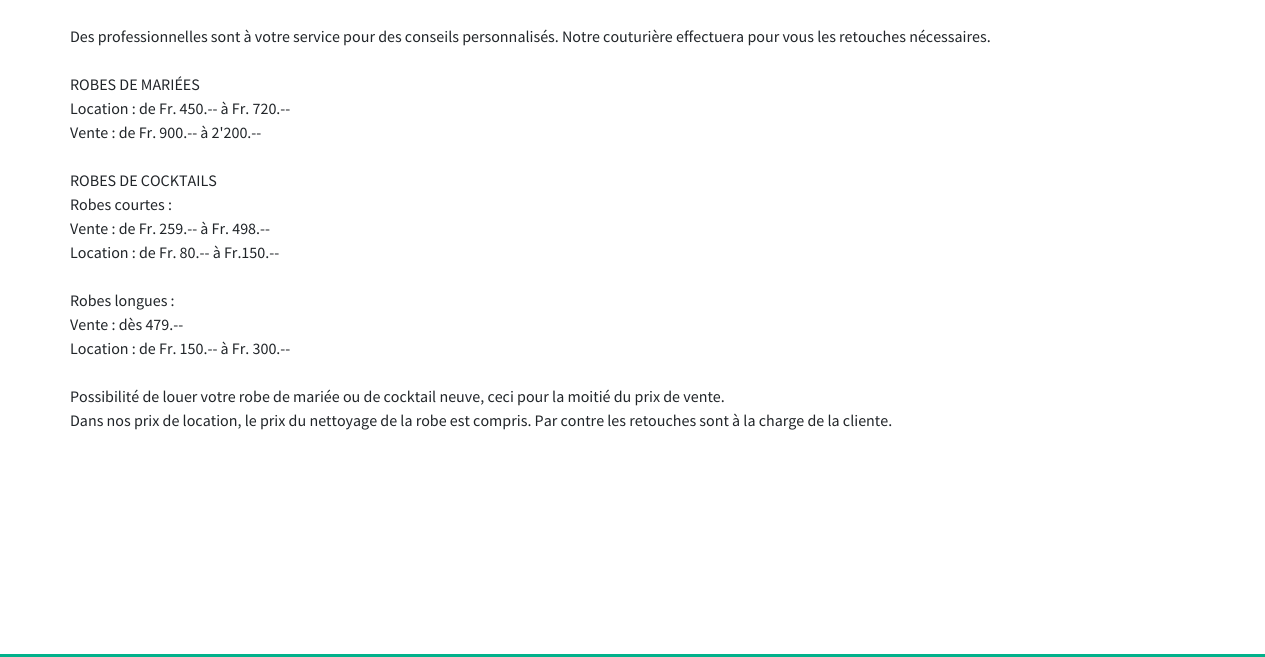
#include <cairo.h>
#include <math.h>
#include <stddef.h>


int main(void) {
    cairo_surface_t *surface = cairo_image_surface_create(CAIRO_FORMAT_RGB24, 1265, 657);
    cairo_t *cr = cairo_create(surface);
    cairo_font_options_t *options = cairo_font_options_create();
    cairo_font_options_set_hint_metrics(options, CAIRO_HINT_METRICS_OFF);
    cairo_font_options_set_hint_style(options, CAIRO_HINT_STYLE_NONE);
    cairo_set_font_options(cr, options);
    cairo_set_miter_limit(cr, 4);
    cairo_set_source_rgb(cr, 0.004, 0.694, 0.545);
    cairo_paint(cr);
    cairo_set_source_rgb(cr, 1, 1, 1);
    cairo_rectangle(cr, 0, 0, 1265, 654);
    cairo_fill(cr);
    cairo_select_font_face(cr, "Source Sans Pro", CAIRO_FONT_SLANT_NORMAL, CAIRO_FONT_WEIGHT_NORMAL);
    cairo_set_font_size(cr, 16);
    cairo_set_source_rgb(cr, 0.129, 0.145, 0.161);
    cairo_move_to(cr, 70, 42);
    cairo_show_text(cr, "Des professionnelles sont à votre service pour des conseils personnalisés. Notre couturière effectuera pour vous les retouches nécessaires.");
    cairo_move_to(cr, 70, 90);
    cairo_show_text(cr, "ROBES DE MARIÉES");
    cairo_move_to(cr, 70, 114);
    cairo_show_text(cr, "Location : de Fr. 450.-- à Fr. 720.--");
    cairo_move_to(cr, 70, 138);
    cairo_show_text(cr, "Vente : de Fr. 900.-- à 2'200.--");
    cairo_move_to(cr, 70, 186);
    cairo_show_text(cr, "ROBES DE COCKTAILS");
    cairo_move_to(cr, 70, 210);
    cairo_show_text(cr, "Robes courtes :");
    cairo_move_to(cr, 70, 234);
    cairo_show_text(cr, "Vente : de Fr. 259.-- à Fr. 498.--");
    cairo_move_to(cr, 70, 258);
    cairo_show_text(cr, "Location : de Fr. 80.-- à Fr.150.--");
    cairo_move_to(cr, 70, 306);
    cairo_show_text(cr, "Robes longues :");
    cairo_move_to(cr, 70, 330);
    cairo_show_text(cr, "Vente : dès 479.--");
    cairo_move_to(cr, 70, 354);
    cairo_show_text(cr, "Location : de Fr. 150.-- à Fr. 300.--");
    cairo_move_to(cr, 70, 402);
    cairo_show_text(cr, "Possibilité de louer votre robe de mariée ou de cocktail neuve, ceci pour la moitié du prix de vente.");
    cairo_move_to(cr, 70, 426);
    cairo_show_text(cr, "Dans nos prix de location, le prix du nettoyage de la robe est compris. Par contre les retouches sont à la charge de la cliente.");
    cairo_surface_write_to_png(surface, "page.png");
    cairo_font_options_destroy(options);
    cairo_destroy(cr);
    cairo_surface_destroy(surface);
    return 0;
}
